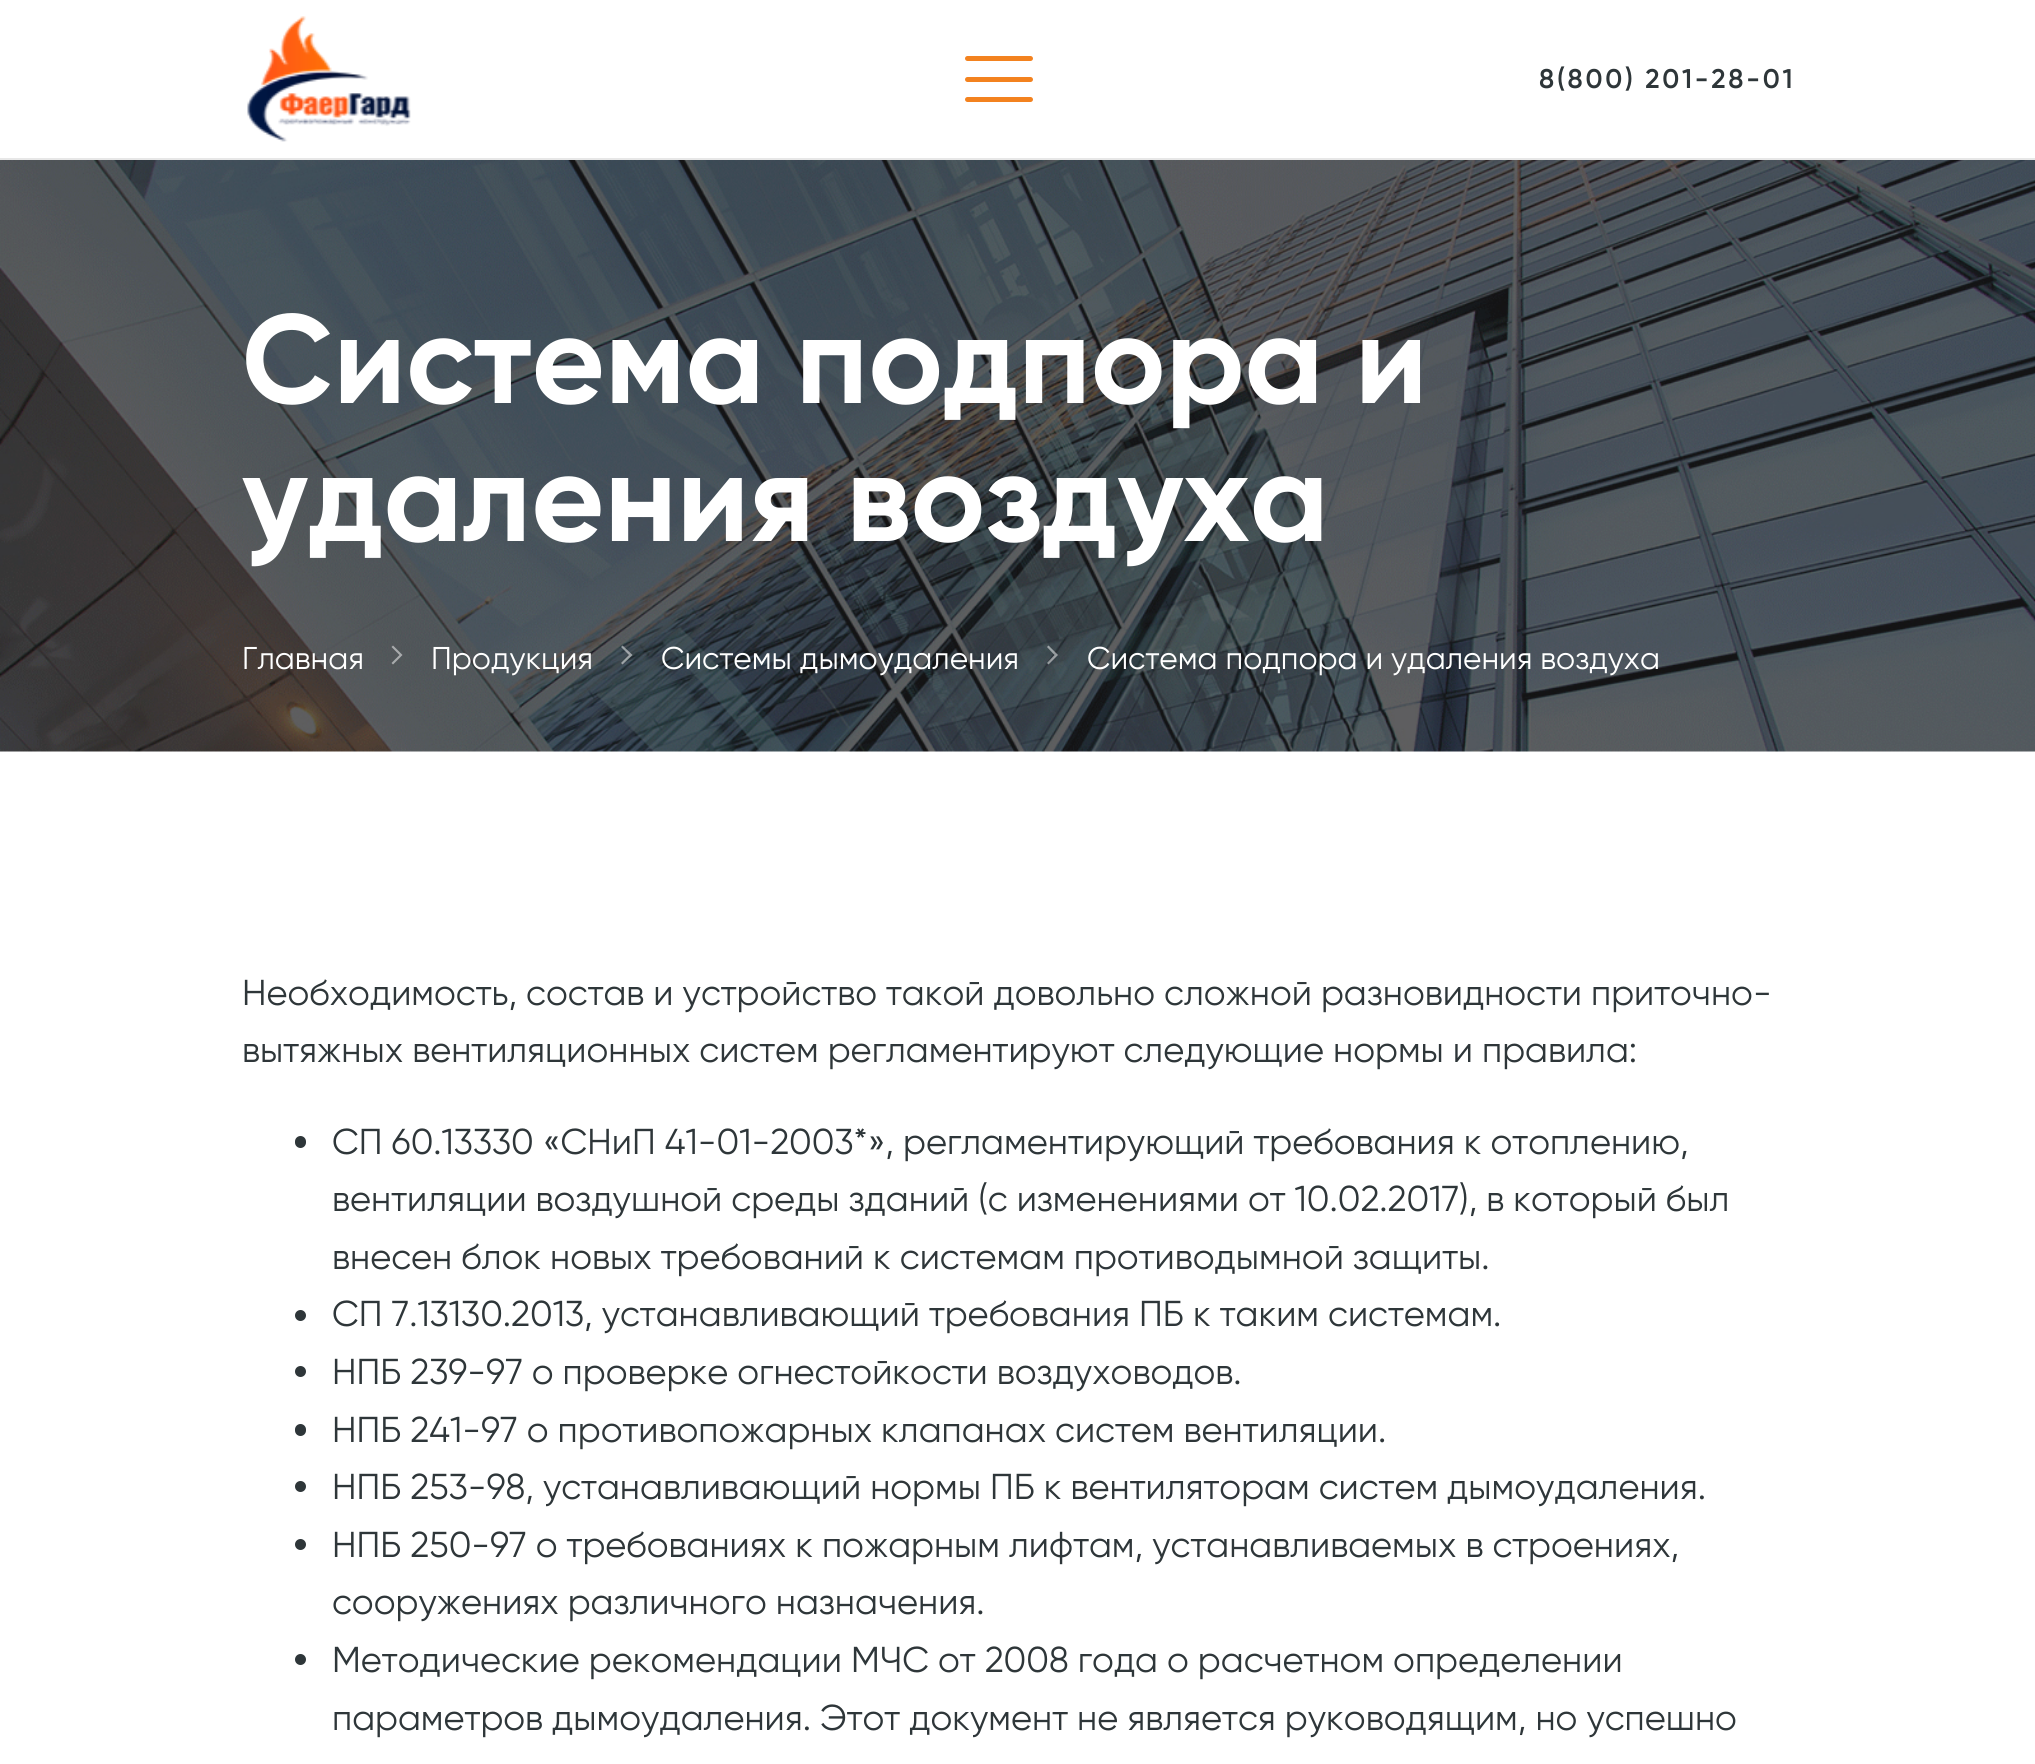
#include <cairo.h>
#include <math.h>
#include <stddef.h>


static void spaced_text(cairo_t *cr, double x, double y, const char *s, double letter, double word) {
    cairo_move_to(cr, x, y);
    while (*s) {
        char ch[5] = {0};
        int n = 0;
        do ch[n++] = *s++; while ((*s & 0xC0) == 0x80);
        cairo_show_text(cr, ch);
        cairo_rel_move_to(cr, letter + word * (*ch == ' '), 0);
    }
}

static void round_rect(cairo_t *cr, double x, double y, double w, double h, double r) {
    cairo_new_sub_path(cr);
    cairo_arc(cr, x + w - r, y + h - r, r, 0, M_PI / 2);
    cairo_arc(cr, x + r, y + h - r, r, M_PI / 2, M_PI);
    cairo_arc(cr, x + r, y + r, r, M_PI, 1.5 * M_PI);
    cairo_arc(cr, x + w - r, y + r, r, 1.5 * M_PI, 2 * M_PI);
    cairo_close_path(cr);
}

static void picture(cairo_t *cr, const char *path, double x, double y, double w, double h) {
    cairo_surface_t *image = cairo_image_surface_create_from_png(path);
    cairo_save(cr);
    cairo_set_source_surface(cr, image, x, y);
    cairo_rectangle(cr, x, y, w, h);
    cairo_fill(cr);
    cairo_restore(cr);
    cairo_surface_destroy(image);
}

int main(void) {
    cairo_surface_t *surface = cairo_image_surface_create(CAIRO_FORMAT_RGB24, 2035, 1764);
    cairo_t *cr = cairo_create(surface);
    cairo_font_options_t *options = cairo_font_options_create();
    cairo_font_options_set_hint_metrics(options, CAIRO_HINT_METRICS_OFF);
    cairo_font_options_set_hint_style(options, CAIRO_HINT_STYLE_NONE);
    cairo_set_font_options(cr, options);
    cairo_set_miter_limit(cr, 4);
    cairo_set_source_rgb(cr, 1, 1, 1);
    cairo_paint(cr);
    cairo_set_source_rgb(cr, 0.906, 0.906, 0.906);
    cairo_rectangle(cr, 0, 158, 2035, 2);
    cairo_fill(cr);
    picture(cr, "img1.png", 247, 16, 164, 126);
    cairo_set_source_rgb(cr, 0.953, 0.51, 0.122);
    round_rect(cr, 965, 77, 68, 5, 2.5);
    cairo_fill(cr);
    round_rect(cr, 965, 56, 68, 5, 2.5);
    cairo_fill(cr);
    round_rect(cr, 965, 97, 68, 5, 2.5);
    cairo_fill(cr);
    cairo_select_font_face(cr, "Gilroy SemiBold", CAIRO_FONT_SLANT_NORMAL, CAIRO_FONT_WEIGHT_NORMAL);
    cairo_set_font_size(cr, 27);
    cairo_set_source_rgb(cr, 0.18, 0.212, 0.224);
    spaced_text(cr, 1539, 88, "8(800) 201-28-01", 2.75, 0);
    picture(cr, "img2.png", 0, 160, 2035, 592);
    cairo_select_font_face(cr, "Gilroy", CAIRO_FONT_SLANT_NORMAL, CAIRO_FONT_WEIGHT_BOLD);
    cairo_set_font_size(cr, 126);
    cairo_set_source_rgb(cr, 1, 1, 1);
    cairo_move_to(cr, 242, 403);
    cairo_show_text(cr, "Система подпора и");
    cairo_move_to(cr, 242, 541);
    cairo_show_text(cr, "удаления воздуха");
    cairo_select_font_face(cr, "Gilroy", CAIRO_FONT_SLANT_NORMAL, CAIRO_FONT_WEIGHT_NORMAL);
    cairo_set_font_size(cr, 31.5);
    cairo_move_to(cr, 242, 669);
    cairo_show_text(cr, "Главная");
    cairo_set_source_rgba(cr, 1, 1, 1, 0.5);
    cairo_new_path(cr);
    cairo_move_to(cr, 393, 645.5);
    cairo_line_to(cr, 402.5, 655);
    cairo_line_to(cr, 399.5, 655);
    cairo_line_to(cr, 391.5, 647);
    cairo_close_path(cr);
    cairo_move_to(cr, 402.5, 655);
    cairo_line_to(cr, 393, 664.5);
    cairo_line_to(cr, 391.5, 663);
    cairo_line_to(cr, 399.5, 655);
    cairo_close_path(cr);
    cairo_fill(cr);
    cairo_set_source_rgb(cr, 1, 1, 1);
    cairo_move_to(cr, 431, 669);
    cairo_show_text(cr, "Продукция");
    cairo_set_source_rgba(cr, 1, 1, 1, 0.5);
    cairo_new_path(cr);
    cairo_move_to(cr, 622.5, 645.5);
    cairo_line_to(cr, 632.5, 655);
    cairo_line_to(cr, 629, 655);
    cairo_line_to(cr, 621, 647);
    cairo_close_path(cr);
    cairo_move_to(cr, 632.5, 655);
    cairo_line_to(cr, 622.5, 664.5);
    cairo_line_to(cr, 621, 663);
    cairo_line_to(cr, 629, 655);
    cairo_close_path(cr);
    cairo_fill(cr);
    cairo_set_source_rgb(cr, 1, 1, 1);
    cairo_move_to(cr, 661, 669);
    cairo_show_text(cr, "Системы дымоудаления");
    cairo_set_source_rgba(cr, 1, 1, 1, 0.5);
    cairo_new_path(cr);
    cairo_move_to(cr, 1048.5, 645.5);
    cairo_line_to(cr, 1058, 655);
    cairo_line_to(cr, 1054.5, 655);
    cairo_line_to(cr, 1047, 647);
    cairo_close_path(cr);
    cairo_move_to(cr, 1058, 655);
    cairo_line_to(cr, 1048.5, 664.5);
    cairo_line_to(cr, 1047, 663);
    cairo_line_to(cr, 1054.5, 655);
    cairo_close_path(cr);
    cairo_fill(cr);
    cairo_set_source_rgb(cr, 1, 1, 1);
    cairo_move_to(cr, 1087, 669);
    cairo_show_text(cr, "Система подпора и удаления воздуха");
    cairo_set_font_size(cr, 36);
    cairo_set_source_rgb(cr, 0.18, 0.212, 0.224);
    cairo_move_to(cr, 242, 1005);
    cairo_show_text(cr, "Необходимость, состав и устройство такой довольно сложной разновидности приточно-");
    cairo_move_to(cr, 242, 1062);
    cairo_show_text(cr, "вытяжных вентиляционных систем регламентируют следующие нормы и правила:");
    round_rect(cr, 295, 1136, 11, 12, 5.5);
    cairo_fill(cr);
    cairo_move_to(cr, 332, 1154);
    cairo_show_text(cr, "СП 60.13330 «СНиП 41-01-2003*», регламентирующий требования к отоплению,");
    cairo_move_to(cr, 332, 1211);
    cairo_show_text(cr, "вентиляции воздушной среды зданий (с изменениями от 10.02.2017), в который был");
    cairo_move_to(cr, 332, 1269);
    cairo_show_text(cr, "внесен блок новых требований к системам противодымной защиты.");
    cairo_new_path(cr);
    cairo_arc(cr, 300.5, 1315.5, 5.5, 0, 2 * M_PI);
    cairo_fill(cr);
    cairo_move_to(cr, 332, 1326);
    cairo_show_text(cr, "СП 7.13130.2013, устанавливающий требования ПБ к таким системам.");
    cairo_new_path(cr);
    cairo_arc(cr, 300.5, 1371.5, 5.5, 0, 2 * M_PI);
    cairo_fill(cr);
    cairo_move_to(cr, 332, 1384);
    cairo_show_text(cr, "НПБ 239-97 о проверке огнестойкости воздуховодов.");
    round_rect(cr, 295, 1424, 11, 12, 5.5);
    cairo_fill(cr);
    cairo_move_to(cr, 332, 1442);
    cairo_show_text(cr, "НПБ 241-97 о противопожарных клапанах систем вентиляции.");
    cairo_new_path(cr);
    cairo_arc(cr, 300.5, 1486.5, 5.5, 0, 2 * M_PI);
    cairo_fill(cr);
    cairo_move_to(cr, 332, 1499);
    cairo_show_text(cr, "НПБ 253-98, устанавливающий нормы ПБ к вентиляторам систем дымоудаления.");
    cairo_new_path(cr);
    cairo_arc(cr, 300.5, 1544.5, 5.5, 0, 2 * M_PI);
    cairo_fill(cr);
    cairo_move_to(cr, 332, 1557);
    cairo_show_text(cr, "НПБ 250-97 о требованиях к пожарным лифтам, устанавливаемых в строениях,");
    cairo_move_to(cr, 332, 1614);
    cairo_show_text(cr, "сооружениях различного назначения.");
    cairo_new_path(cr);
    cairo_arc(cr, 300.5, 1659.5, 5.5, 0, 2 * M_PI);
    cairo_fill(cr);
    cairo_move_to(cr, 332, 1672);
    cairo_show_text(cr, "Методические рекомендации МЧС от 2008 года о расчетном определении");
    cairo_move_to(cr, 332, 1730);
    cairo_show_text(cr, "параметров дымоудаления. Этот документ не является руководящим, но успешно");
    cairo_surface_write_to_png(surface, "page.png");
    cairo_font_options_destroy(options);
    cairo_destroy(cr);
    cairo_surface_destroy(surface);
    return 0;
}
